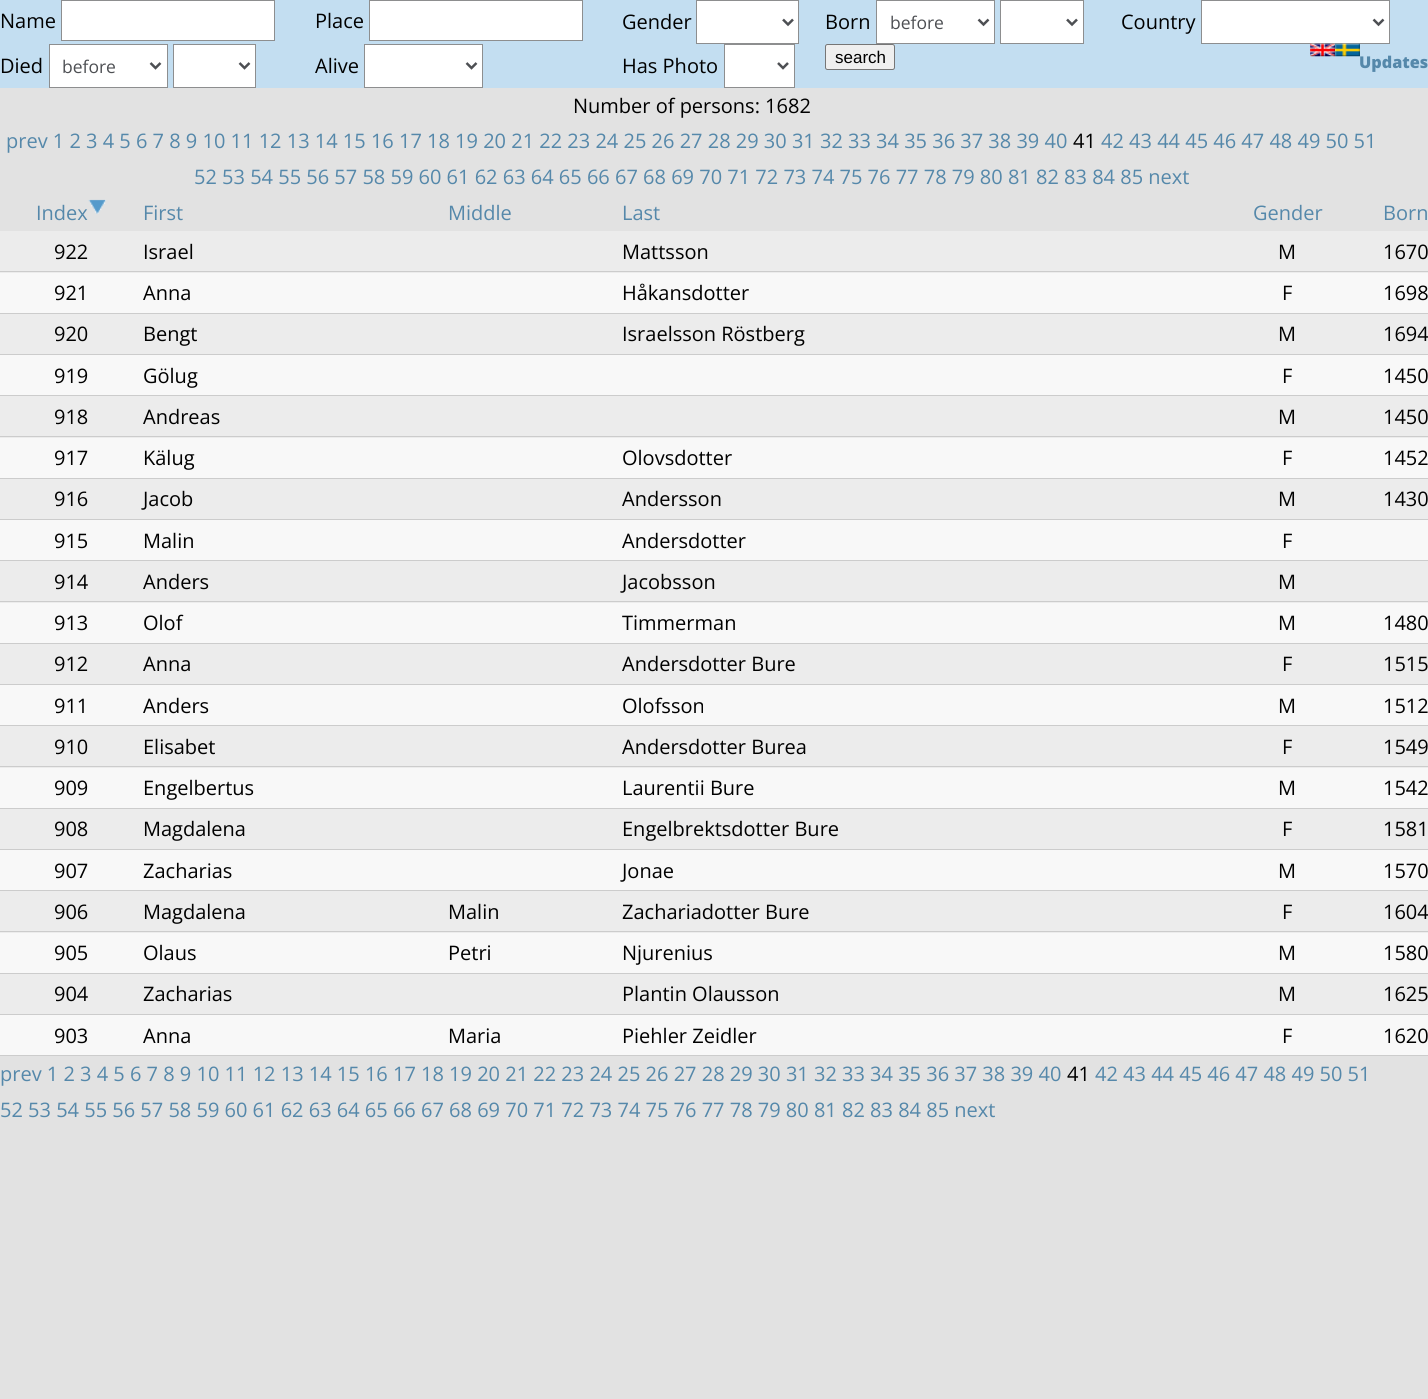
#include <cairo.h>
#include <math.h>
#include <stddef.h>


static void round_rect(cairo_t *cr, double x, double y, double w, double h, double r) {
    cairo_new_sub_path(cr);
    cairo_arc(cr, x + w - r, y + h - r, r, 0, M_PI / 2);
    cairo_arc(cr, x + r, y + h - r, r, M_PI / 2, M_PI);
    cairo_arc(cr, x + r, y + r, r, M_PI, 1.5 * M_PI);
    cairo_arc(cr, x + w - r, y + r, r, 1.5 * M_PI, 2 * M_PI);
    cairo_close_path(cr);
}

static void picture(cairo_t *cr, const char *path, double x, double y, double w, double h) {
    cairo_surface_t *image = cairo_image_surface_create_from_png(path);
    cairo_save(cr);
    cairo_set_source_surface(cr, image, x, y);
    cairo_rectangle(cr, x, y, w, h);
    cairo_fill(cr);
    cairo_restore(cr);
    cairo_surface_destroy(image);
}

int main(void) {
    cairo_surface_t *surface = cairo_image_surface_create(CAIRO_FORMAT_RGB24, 1428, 1399);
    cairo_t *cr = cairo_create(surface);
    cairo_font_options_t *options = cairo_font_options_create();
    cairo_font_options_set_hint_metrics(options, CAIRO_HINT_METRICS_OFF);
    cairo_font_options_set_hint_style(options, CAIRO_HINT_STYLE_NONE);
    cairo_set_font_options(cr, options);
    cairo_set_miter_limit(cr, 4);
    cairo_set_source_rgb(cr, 0.886, 0.886, 0.886);
    cairo_paint(cr);
    cairo_set_source_rgb(cr, 0.765, 0.871, 0.945);
    cairo_rectangle(cr, 0, 0, 1428, 88);
    cairo_fill(cr);
    cairo_select_font_face(cr, "Open Sans", CAIRO_FONT_SLANT_NORMAL, CAIRO_FONT_WEIGHT_NORMAL);
    cairo_set_font_size(cr, 20);
    cairo_set_source_rgb(cr, 0, 0, 0);
    cairo_move_to(cr, 0, 28);
    cairo_show_text(cr, "Name");
    cairo_set_source_rgb(cr, 1, 1, 1);
    cairo_rectangle(cr, 61.5, 0.5, 213, 40);
    cairo_fill_preserve(cr);
    cairo_set_source_rgb(cr, 0.553, 0.557, 0.561);
    cairo_set_line_width(cr, 1);
    cairo_stroke(cr);
    cairo_set_source_rgb(cr, 0, 0, 0);
    cairo_move_to(cr, 315, 28);
    cairo_show_text(cr, "Place");
    cairo_set_source_rgb(cr, 1, 1, 1);
    cairo_rectangle(cr, 369.5, 0.5, 213, 40);
    cairo_fill_preserve(cr);
    cairo_set_source_rgb(cr, 0.553, 0.557, 0.561);
    cairo_stroke(cr);
    cairo_set_source_rgb(cr, 0, 0, 0);
    cairo_move_to(cr, 622, 29);
    cairo_show_text(cr, "Gender");
    cairo_set_source_rgb(cr, 1, 1, 1);
    cairo_rectangle(cr, 696.5, 0.5, 102, 43);
    cairo_fill_preserve(cr);
    cairo_set_source_rgb(cr, 0.553, 0.557, 0.561);
    cairo_stroke(cr);
    cairo_new_path(cr);
    cairo_move_to(cr, 783, 19.5);
    cairo_line_to(cr, 788, 24.5);
    cairo_line_to(cr, 793, 19.5);
    cairo_set_source_rgb(cr, 0.302, 0.31, 0.325);
    cairo_set_line_width(cr, 2.5);
    cairo_stroke(cr);
    cairo_set_source_rgb(cr, 0, 0, 0);
    cairo_move_to(cr, 825, 29);
    cairo_show_text(cr, "Born");
    cairo_set_source_rgb(cr, 1, 1, 1);
    cairo_rectangle(cr, 876.5, 0.5, 118, 43);
    cairo_fill_preserve(cr);
    cairo_set_source_rgb(cr, 0.553, 0.557, 0.561);
    cairo_set_line_width(cr, 1);
    cairo_stroke(cr);
    cairo_new_path(cr);
    cairo_move_to(cr, 978.5, 19.5);
    cairo_line_to(cr, 983.5, 24.5);
    cairo_line_to(cr, 988.5, 19.5);
    cairo_set_source_rgb(cr, 0.302, 0.31, 0.325);
    cairo_set_line_width(cr, 2.5);
    cairo_stroke(cr);
    cairo_set_font_size(cr, 17.5);
    cairo_move_to(cr, 890, 29);
    cairo_show_text(cr, "before");
    cairo_set_source_rgb(cr, 1, 1, 1);
    cairo_rectangle(cr, 1000.5, 0.5, 83, 43);
    cairo_fill_preserve(cr);
    cairo_set_source_rgb(cr, 0.553, 0.557, 0.561);
    cairo_set_line_width(cr, 1);
    cairo_stroke(cr);
    cairo_new_path(cr);
    cairo_move_to(cr, 1067, 19.5);
    cairo_line_to(cr, 1072, 24.5);
    cairo_line_to(cr, 1077, 19.5);
    cairo_set_source_rgb(cr, 0.302, 0.31, 0.325);
    cairo_set_line_width(cr, 2.5);
    cairo_stroke(cr);
    cairo_set_font_size(cr, 20);
    cairo_set_source_rgb(cr, 0, 0, 0);
    cairo_move_to(cr, 1121, 29);
    cairo_show_text(cr, "Country");
    cairo_set_source_rgb(cr, 1, 1, 1);
    cairo_rectangle(cr, 1201.5, 0.5, 188, 43);
    cairo_fill_preserve(cr);
    cairo_set_source_rgb(cr, 0.553, 0.557, 0.561);
    cairo_set_line_width(cr, 1);
    cairo_stroke(cr);
    cairo_new_path(cr);
    cairo_move_to(cr, 1373.5, 19.5);
    cairo_line_to(cr, 1378.5, 24.5);
    cairo_line_to(cr, 1383.5, 19.5);
    cairo_set_source_rgb(cr, 0.302, 0.31, 0.325);
    cairo_set_line_width(cr, 2.5);
    cairo_stroke(cr);
    cairo_set_source_rgb(cr, 0, 0, 0);
    cairo_move_to(cr, 0, 73);
    cairo_show_text(cr, "Died");
    cairo_set_source_rgb(cr, 1, 1, 1);
    cairo_rectangle(cr, 49.5, 44.5, 118, 43);
    cairo_fill_preserve(cr);
    cairo_set_source_rgb(cr, 0.553, 0.557, 0.561);
    cairo_set_line_width(cr, 1);
    cairo_stroke(cr);
    cairo_new_path(cr);
    cairo_move_to(cr, 150.5, 63);
    cairo_line_to(cr, 155.5, 68);
    cairo_line_to(cr, 160.5, 63);
    cairo_set_source_rgb(cr, 0.302, 0.31, 0.325);
    cairo_set_line_width(cr, 2.5);
    cairo_stroke(cr);
    cairo_set_font_size(cr, 17.5);
    cairo_move_to(cr, 62, 73);
    cairo_show_text(cr, "before");
    cairo_set_source_rgb(cr, 1, 1, 1);
    cairo_rectangle(cr, 173.5, 44.5, 82, 43);
    cairo_fill_preserve(cr);
    cairo_set_source_rgb(cr, 0.553, 0.557, 0.561);
    cairo_set_line_width(cr, 1);
    cairo_stroke(cr);
    cairo_new_path(cr);
    cairo_move_to(cr, 239.5, 63);
    cairo_line_to(cr, 244.5, 68);
    cairo_line_to(cr, 249.5, 63);
    cairo_set_source_rgb(cr, 0.302, 0.31, 0.325);
    cairo_set_line_width(cr, 2.5);
    cairo_stroke(cr);
    cairo_set_font_size(cr, 20);
    cairo_set_source_rgb(cr, 0, 0, 0);
    cairo_move_to(cr, 315, 73);
    cairo_show_text(cr, "Alive");
    cairo_set_source_rgb(cr, 1, 1, 1);
    cairo_rectangle(cr, 364.5, 44.5, 118, 43);
    cairo_fill_preserve(cr);
    cairo_set_source_rgb(cr, 0.553, 0.557, 0.561);
    cairo_set_line_width(cr, 1);
    cairo_stroke(cr);
    cairo_new_path(cr);
    cairo_move_to(cr, 466.5, 63);
    cairo_line_to(cr, 471.5, 68);
    cairo_line_to(cr, 476.5, 63);
    cairo_set_source_rgb(cr, 0.302, 0.31, 0.325);
    cairo_set_line_width(cr, 2.5);
    cairo_stroke(cr);
    cairo_set_source_rgb(cr, 0, 0, 0);
    cairo_move_to(cr, 622, 73);
    cairo_show_text(cr, "Has Photo");
    cairo_set_source_rgb(cr, 1, 1, 1);
    cairo_rectangle(cr, 724.5, 44.5, 70, 43);
    cairo_fill_preserve(cr);
    cairo_set_source_rgb(cr, 0.553, 0.557, 0.561);
    cairo_set_line_width(cr, 1);
    cairo_stroke(cr);
    cairo_new_path(cr);
    cairo_move_to(cr, 778, 63);
    cairo_line_to(cr, 783, 68);
    cairo_line_to(cr, 788, 63);
    cairo_set_source_rgb(cr, 0.302, 0.31, 0.325);
    cairo_set_line_width(cr, 2.5);
    cairo_stroke(cr);
    cairo_set_source_rgb(cr, 0.937, 0.937, 0.937);
    round_rect(cr, 825.5, 44.5, 69, 25, 2);
    cairo_fill_preserve(cr);
    cairo_set_source_rgb(cr, 0.463, 0.463, 0.463);
    cairo_set_line_width(cr, 1);
    cairo_stroke(cr);
    cairo_select_font_face(cr, "Liberation Sans", CAIRO_FONT_SLANT_NORMAL, CAIRO_FONT_WEIGHT_NORMAL);
    cairo_set_font_size(cr, 17);
    cairo_set_source_rgb(cr, 0, 0, 0);
    cairo_move_to(cr, 835, 63);
    cairo_show_text(cr, "search");
    picture(cr, "img1.png", 1310, 43, 25, 14);
    picture(cr, "img2.png", 1335, 43, 25, 14);
    cairo_select_font_face(cr, "Open Sans ExtraBold", CAIRO_FONT_SLANT_NORMAL, CAIRO_FONT_WEIGHT_NORMAL);
    cairo_set_font_size(cr, 16.25);
    cairo_set_source_rgb(cr, 0.333, 0.533, 0.667);
    cairo_move_to(cr, 1359, 68);
    cairo_show_text(cr, "Updates");
    cairo_select_font_face(cr, "Open Sans", CAIRO_FONT_SLANT_NORMAL, CAIRO_FONT_WEIGHT_NORMAL);
    cairo_set_font_size(cr, 20);
    cairo_set_source_rgb(cr, 0, 0, 0);
    cairo_move_to(cr, 573, 113);
    cairo_show_text(cr, "Number of persons: 1682");
    cairo_set_source_rgb(cr, 0.333, 0.533, 0.667);
    cairo_move_to(cr, 6, 148);
    cairo_show_text(cr, "prev 1 2 3 4 5 6 7 8 9 10 11 12 13 14 15 16 17 18 19 20 21 22 23 24 25 26 27 28 29 30 31 32 33 34 35 36 37 38 39 40");
    cairo_set_source_rgb(cr, 0, 0, 0);
    cairo_move_to(cr, 1073, 148);
    cairo_show_text(cr, "41");
    cairo_set_source_rgb(cr, 0.333, 0.533, 0.667);
    cairo_move_to(cr, 1101, 148);
    cairo_show_text(cr, "42 43 44 45 46 47 48 49 50 51");
    cairo_move_to(cr, 194, 184);
    cairo_show_text(cr, "52 53 54 55 56 57 58 59 60 61 62 63 64 65 66 67 68 69 70 71 72 73 74 75 76 77 78 79 80 81 82 83 84 85 next");
    cairo_move_to(cr, 36, 220);
    cairo_show_text(cr, "Index");
    picture(cr, "img3.png", 88, 199, 19, 15);
    cairo_move_to(cr, 143, 220);
    cairo_show_text(cr, "First");
    cairo_move_to(cr, 448, 220);
    cairo_show_text(cr, "Middle");
    cairo_move_to(cr, 622, 220);
    cairo_show_text(cr, "Last");
    cairo_move_to(cr, 1253, 220);
    cairo_show_text(cr, "Gender");
    cairo_move_to(cr, 1383, 220);
    cairo_show_text(cr, "Born");
    cairo_set_source_rgb(cr, 0.922, 0.922, 0.922);
    cairo_rectangle(cr, 0, 231, 1428, 42);
    cairo_fill(cr);
    cairo_set_source_rgb(cr, 0, 0, 0);
    cairo_move_to(cr, 54, 259);
    cairo_show_text(cr, "922");
    cairo_move_to(cr, 143, 259);
    cairo_show_text(cr, "Israel");
    cairo_move_to(cr, 622, 259);
    cairo_show_text(cr, "Mattsson");
    cairo_move_to(cr, 1278, 259);
    cairo_show_text(cr, "M");
    cairo_set_source_rgb(cr, 0.8, 0.8, 0.8);
    cairo_rectangle(cr, 0, 271, 1428, 1);
    cairo_fill(cr);
    cairo_set_source_rgb(cr, 0, 0, 0);
    cairo_move_to(cr, 1383, 259);
    cairo_show_text(cr, "1670");
    cairo_set_source_rgb(cr, 0.969, 0.969, 0.969);
    cairo_rectangle(cr, 0, 273, 1428, 40);
    cairo_fill(cr);
    cairo_set_source_rgb(cr, 0, 0, 0);
    cairo_move_to(cr, 54, 300);
    cairo_show_text(cr, "921");
    cairo_move_to(cr, 143, 300);
    cairo_show_text(cr, "Anna");
    cairo_move_to(cr, 622, 300);
    cairo_show_text(cr, "Håkansdotter");
    cairo_move_to(cr, 1282, 300);
    cairo_show_text(cr, "F");
    cairo_set_source_rgb(cr, 0.8, 0.8, 0.8);
    cairo_rectangle(cr, 0, 313, 1428, 1);
    cairo_fill(cr);
    cairo_set_source_rgb(cr, 0, 0, 0);
    cairo_move_to(cr, 1383, 300);
    cairo_show_text(cr, "1698");
    cairo_set_source_rgb(cr, 0.922, 0.922, 0.922);
    cairo_rectangle(cr, 0, 314, 1428, 40);
    cairo_fill(cr);
    cairo_set_source_rgb(cr, 0, 0, 0);
    cairo_move_to(cr, 54, 341);
    cairo_show_text(cr, "920");
    cairo_move_to(cr, 143, 341);
    cairo_show_text(cr, "Bengt");
    cairo_move_to(cr, 622, 341);
    cairo_show_text(cr, "Israelsson Röstberg");
    cairo_move_to(cr, 1278, 341);
    cairo_show_text(cr, "M");
    cairo_set_source_rgb(cr, 0.8, 0.8, 0.8);
    cairo_rectangle(cr, 0, 354, 1428, 1);
    cairo_fill(cr);
    cairo_set_source_rgb(cr, 0, 0, 0);
    cairo_move_to(cr, 1383, 341);
    cairo_show_text(cr, "1694");
    cairo_set_source_rgb(cr, 0.969, 0.969, 0.969);
    cairo_rectangle(cr, 0, 355, 1428, 40);
    cairo_fill(cr);
    cairo_set_source_rgb(cr, 0, 0, 0);
    cairo_move_to(cr, 54, 383);
    cairo_show_text(cr, "919");
    cairo_move_to(cr, 143, 383);
    cairo_show_text(cr, "Gölug");
    cairo_move_to(cr, 1282, 383);
    cairo_show_text(cr, "F");
    cairo_set_source_rgb(cr, 0.8, 0.8, 0.8);
    cairo_rectangle(cr, 0, 395, 1428, 1);
    cairo_fill(cr);
    cairo_set_source_rgb(cr, 0, 0, 0);
    cairo_move_to(cr, 1383, 383);
    cairo_show_text(cr, "1450");
    cairo_set_source_rgb(cr, 0.922, 0.922, 0.922);
    cairo_rectangle(cr, 0, 396, 1428, 42);
    cairo_fill(cr);
    cairo_set_source_rgb(cr, 0, 0, 0);
    cairo_move_to(cr, 54, 424);
    cairo_show_text(cr, "918");
    cairo_move_to(cr, 143, 424);
    cairo_show_text(cr, "Andreas");
    cairo_move_to(cr, 1278, 424);
    cairo_show_text(cr, "M");
    cairo_set_source_rgb(cr, 0.8, 0.8, 0.8);
    cairo_rectangle(cr, 0, 436, 1428, 1);
    cairo_fill(cr);
    cairo_set_source_rgb(cr, 0, 0, 0);
    cairo_move_to(cr, 1383, 424);
    cairo_show_text(cr, "1450");
    cairo_set_source_rgb(cr, 0.969, 0.969, 0.969);
    cairo_rectangle(cr, 0, 438, 1428, 40);
    cairo_fill(cr);
    cairo_set_source_rgb(cr, 0, 0, 0);
    cairo_move_to(cr, 54, 465);
    cairo_show_text(cr, "917");
    cairo_move_to(cr, 143, 465);
    cairo_show_text(cr, "Kälug");
    cairo_move_to(cr, 622, 465);
    cairo_show_text(cr, "Olovsdotter");
    cairo_move_to(cr, 1282, 465);
    cairo_show_text(cr, "F");
    cairo_set_source_rgb(cr, 0.8, 0.8, 0.8);
    cairo_rectangle(cr, 0, 478, 1428, 1);
    cairo_fill(cr);
    cairo_set_source_rgb(cr, 0, 0, 0);
    cairo_move_to(cr, 1383, 465);
    cairo_show_text(cr, "1452");
    cairo_set_source_rgb(cr, 0.922, 0.922, 0.922);
    cairo_rectangle(cr, 0, 479, 1428, 40);
    cairo_fill(cr);
    cairo_set_source_rgb(cr, 0, 0, 0);
    cairo_move_to(cr, 54, 506);
    cairo_show_text(cr, "916");
    cairo_move_to(cr, 143, 506);
    cairo_show_text(cr, "Jacob");
    cairo_move_to(cr, 622, 506);
    cairo_show_text(cr, "Andersson");
    cairo_move_to(cr, 1278, 506);
    cairo_show_text(cr, "M");
    cairo_set_source_rgb(cr, 0.8, 0.8, 0.8);
    cairo_rectangle(cr, 0, 519, 1428, 1);
    cairo_fill(cr);
    cairo_set_source_rgb(cr, 0, 0, 0);
    cairo_move_to(cr, 1383, 506);
    cairo_show_text(cr, "1430");
    cairo_set_source_rgb(cr, 0.969, 0.969, 0.969);
    cairo_rectangle(cr, 0, 520, 1428, 40);
    cairo_fill(cr);
    cairo_set_source_rgb(cr, 0, 0, 0);
    cairo_move_to(cr, 54, 548);
    cairo_show_text(cr, "915");
    cairo_move_to(cr, 143, 548);
    cairo_show_text(cr, "Malin");
    cairo_move_to(cr, 622, 548);
    cairo_show_text(cr, "Andersdotter");
    cairo_move_to(cr, 1282, 548);
    cairo_show_text(cr, "F");
    cairo_set_source_rgb(cr, 0.8, 0.8, 0.8);
    cairo_rectangle(cr, 0, 560, 1428, 1);
    cairo_fill(cr);
    cairo_set_source_rgb(cr, 0.922, 0.922, 0.922);
    cairo_rectangle(cr, 0, 561, 1428, 42);
    cairo_fill(cr);
    cairo_set_source_rgb(cr, 0, 0, 0);
    cairo_move_to(cr, 54, 589);
    cairo_show_text(cr, "914");
    cairo_move_to(cr, 143, 589);
    cairo_show_text(cr, "Anders");
    cairo_move_to(cr, 622, 589);
    cairo_show_text(cr, "Jacobsson");
    cairo_move_to(cr, 1278, 589);
    cairo_show_text(cr, "M");
    cairo_set_source_rgb(cr, 0.8, 0.8, 0.8);
    cairo_rectangle(cr, 0, 601, 1428, 1);
    cairo_fill(cr);
    cairo_set_source_rgb(cr, 0.969, 0.969, 0.969);
    cairo_rectangle(cr, 0, 603, 1428, 40);
    cairo_fill(cr);
    cairo_set_source_rgb(cr, 0, 0, 0);
    cairo_move_to(cr, 54, 630);
    cairo_show_text(cr, "913");
    cairo_move_to(cr, 143, 630);
    cairo_show_text(cr, "Olof");
    cairo_move_to(cr, 622, 630);
    cairo_show_text(cr, "Timmerman");
    cairo_move_to(cr, 1278, 630);
    cairo_show_text(cr, "M");
    cairo_set_source_rgb(cr, 0.8, 0.8, 0.8);
    cairo_rectangle(cr, 0, 643, 1428, 1);
    cairo_fill(cr);
    cairo_set_source_rgb(cr, 0, 0, 0);
    cairo_move_to(cr, 1383, 630);
    cairo_show_text(cr, "1480");
    cairo_set_source_rgb(cr, 0.922, 0.922, 0.922);
    cairo_rectangle(cr, 0, 644, 1428, 40);
    cairo_fill(cr);
    cairo_set_source_rgb(cr, 0, 0, 0);
    cairo_move_to(cr, 54, 671);
    cairo_show_text(cr, "912");
    cairo_move_to(cr, 143, 671);
    cairo_show_text(cr, "Anna");
    cairo_move_to(cr, 622, 671);
    cairo_show_text(cr, "Andersdotter Bure");
    cairo_move_to(cr, 1282, 671);
    cairo_show_text(cr, "F");
    cairo_set_source_rgb(cr, 0.8, 0.8, 0.8);
    cairo_rectangle(cr, 0, 684, 1428, 1);
    cairo_fill(cr);
    cairo_set_source_rgb(cr, 0, 0, 0);
    cairo_move_to(cr, 1383, 671);
    cairo_show_text(cr, "1515");
    cairo_set_source_rgb(cr, 0.969, 0.969, 0.969);
    cairo_rectangle(cr, 0, 685, 1428, 40);
    cairo_fill(cr);
    cairo_set_source_rgb(cr, 0, 0, 0);
    cairo_move_to(cr, 54, 713);
    cairo_show_text(cr, "911");
    cairo_move_to(cr, 143, 713);
    cairo_show_text(cr, "Anders");
    cairo_move_to(cr, 622, 713);
    cairo_show_text(cr, "Olofsson");
    cairo_move_to(cr, 1278, 713);
    cairo_show_text(cr, "M");
    cairo_set_source_rgb(cr, 0.8, 0.8, 0.8);
    cairo_rectangle(cr, 0, 725, 1428, 1);
    cairo_fill(cr);
    cairo_set_source_rgb(cr, 0, 0, 0);
    cairo_move_to(cr, 1383, 713);
    cairo_show_text(cr, "1512");
    cairo_set_source_rgb(cr, 0.922, 0.922, 0.922);
    cairo_rectangle(cr, 0, 726, 1428, 42);
    cairo_fill(cr);
    cairo_set_source_rgb(cr, 0, 0, 0);
    cairo_move_to(cr, 54, 754);
    cairo_show_text(cr, "910");
    cairo_move_to(cr, 143, 754);
    cairo_show_text(cr, "Elisabet");
    cairo_move_to(cr, 622, 754);
    cairo_show_text(cr, "Andersdotter Burea");
    cairo_move_to(cr, 1282, 754);
    cairo_show_text(cr, "F");
    cairo_set_source_rgb(cr, 0.8, 0.8, 0.8);
    cairo_rectangle(cr, 0, 766, 1428, 1);
    cairo_fill(cr);
    cairo_set_source_rgb(cr, 0, 0, 0);
    cairo_move_to(cr, 1383, 754);
    cairo_show_text(cr, "1549");
    cairo_set_source_rgb(cr, 0.969, 0.969, 0.969);
    cairo_rectangle(cr, 0, 768, 1428, 40);
    cairo_fill(cr);
    cairo_set_source_rgb(cr, 0, 0, 0);
    cairo_move_to(cr, 54, 795);
    cairo_show_text(cr, "909");
    cairo_move_to(cr, 143, 795);
    cairo_show_text(cr, "Engelbertus");
    cairo_move_to(cr, 622, 795);
    cairo_show_text(cr, "Laurentii Bure");
    cairo_move_to(cr, 1278, 795);
    cairo_show_text(cr, "M");
    cairo_set_source_rgb(cr, 0.8, 0.8, 0.8);
    cairo_rectangle(cr, 0, 808, 1428, 1);
    cairo_fill(cr);
    cairo_set_source_rgb(cr, 0, 0, 0);
    cairo_move_to(cr, 1383, 795);
    cairo_show_text(cr, "1542");
    cairo_set_source_rgb(cr, 0.922, 0.922, 0.922);
    cairo_rectangle(cr, 0, 809, 1428, 40);
    cairo_fill(cr);
    cairo_set_source_rgb(cr, 0, 0, 0);
    cairo_move_to(cr, 54, 836);
    cairo_show_text(cr, "908");
    cairo_move_to(cr, 143, 836);
    cairo_show_text(cr, "Magdalena");
    cairo_move_to(cr, 622, 836);
    cairo_show_text(cr, "Engelbrektsdotter Bure");
    cairo_move_to(cr, 1282, 836);
    cairo_show_text(cr, "F");
    cairo_set_source_rgb(cr, 0.8, 0.8, 0.8);
    cairo_rectangle(cr, 0, 849, 1428, 1);
    cairo_fill(cr);
    cairo_set_source_rgb(cr, 0, 0, 0);
    cairo_move_to(cr, 1383, 836);
    cairo_show_text(cr, "1581");
    cairo_set_source_rgb(cr, 0.969, 0.969, 0.969);
    cairo_rectangle(cr, 0, 850, 1428, 40);
    cairo_fill(cr);
    cairo_set_source_rgb(cr, 0, 0, 0);
    cairo_move_to(cr, 54, 878);
    cairo_show_text(cr, "907");
    cairo_move_to(cr, 143, 878);
    cairo_show_text(cr, "Zacharias");
    cairo_move_to(cr, 622, 878);
    cairo_show_text(cr, "Jonae");
    cairo_move_to(cr, 1278, 878);
    cairo_show_text(cr, "M");
    cairo_set_source_rgb(cr, 0.8, 0.8, 0.8);
    cairo_rectangle(cr, 0, 890, 1428, 1);
    cairo_fill(cr);
    cairo_set_source_rgb(cr, 0, 0, 0);
    cairo_move_to(cr, 1383, 878);
    cairo_show_text(cr, "1570");
    cairo_set_source_rgb(cr, 0.922, 0.922, 0.922);
    cairo_rectangle(cr, 0, 891, 1428, 42);
    cairo_fill(cr);
    cairo_set_source_rgb(cr, 0, 0, 0);
    cairo_move_to(cr, 54, 919);
    cairo_show_text(cr, "906");
    cairo_move_to(cr, 143, 919);
    cairo_show_text(cr, "Magdalena");
    cairo_move_to(cr, 448, 919);
    cairo_show_text(cr, "Malin");
    cairo_move_to(cr, 622, 919);
    cairo_show_text(cr, "Zachariadotter Bure");
    cairo_move_to(cr, 1282, 919);
    cairo_show_text(cr, "F");
    cairo_set_source_rgb(cr, 0.8, 0.8, 0.8);
    cairo_rectangle(cr, 0, 931, 1428, 1);
    cairo_fill(cr);
    cairo_set_source_rgb(cr, 0, 0, 0);
    cairo_move_to(cr, 1383, 919);
    cairo_show_text(cr, "1604");
    cairo_set_source_rgb(cr, 0.969, 0.969, 0.969);
    cairo_rectangle(cr, 0, 933, 1428, 40);
    cairo_fill(cr);
    cairo_set_source_rgb(cr, 0, 0, 0);
    cairo_move_to(cr, 54, 960);
    cairo_show_text(cr, "905");
    cairo_move_to(cr, 143, 960);
    cairo_show_text(cr, "Olaus");
    cairo_move_to(cr, 448, 960);
    cairo_show_text(cr, "Petri");
    cairo_move_to(cr, 622, 960);
    cairo_show_text(cr, "Njurenius");
    cairo_move_to(cr, 1278, 960);
    cairo_show_text(cr, "M");
    cairo_set_source_rgb(cr, 0.8, 0.8, 0.8);
    cairo_rectangle(cr, 0, 973, 1428, 1);
    cairo_fill(cr);
    cairo_set_source_rgb(cr, 0, 0, 0);
    cairo_move_to(cr, 1383, 960);
    cairo_show_text(cr, "1580");
    cairo_set_source_rgb(cr, 0.922, 0.922, 0.922);
    cairo_rectangle(cr, 0, 974, 1428, 40);
    cairo_fill(cr);
    cairo_set_source_rgb(cr, 0, 0, 0);
    cairo_move_to(cr, 54, 1001);
    cairo_show_text(cr, "904");
    cairo_move_to(cr, 143, 1001);
    cairo_show_text(cr, "Zacharias");
    cairo_move_to(cr, 622, 1001);
    cairo_show_text(cr, "Plantin Olausson");
    cairo_move_to(cr, 1278, 1001);
    cairo_show_text(cr, "M");
    cairo_set_source_rgb(cr, 0.8, 0.8, 0.8);
    cairo_rectangle(cr, 0, 1014, 1428, 1);
    cairo_fill(cr);
    cairo_set_source_rgb(cr, 0, 0, 0);
    cairo_move_to(cr, 1383, 1001);
    cairo_show_text(cr, "1625");
    cairo_set_source_rgb(cr, 0.969, 0.969, 0.969);
    cairo_rectangle(cr, 0, 1015, 1428, 40);
    cairo_fill(cr);
    cairo_set_source_rgb(cr, 0, 0, 0);
    cairo_move_to(cr, 54, 1043);
    cairo_show_text(cr, "903");
    cairo_move_to(cr, 143, 1043);
    cairo_show_text(cr, "Anna");
    cairo_move_to(cr, 448, 1043);
    cairo_show_text(cr, "Maria");
    cairo_move_to(cr, 622, 1043);
    cairo_show_text(cr, "Piehler Zeidler");
    cairo_move_to(cr, 1282, 1043);
    cairo_show_text(cr, "F");
    cairo_set_source_rgb(cr, 0.8, 0.8, 0.8);
    cairo_rectangle(cr, 0, 1055, 1428, 1);
    cairo_fill(cr);
    cairo_set_source_rgb(cr, 0, 0, 0);
    cairo_move_to(cr, 1383, 1043);
    cairo_show_text(cr, "1620");
    cairo_set_source_rgb(cr, 0.333, 0.533, 0.667);
    cairo_move_to(cr, 0, 1081);
    cairo_show_text(cr, "prev 1 2 3 4 5 6 7 8 9 10 11 12 13 14 15 16 17 18 19 20 21 22 23 24 25 26 27 28 29 30 31 32 33 34 35 36 37 38 39 40");
    cairo_set_source_rgb(cr, 0, 0, 0);
    cairo_move_to(cr, 1067, 1081);
    cairo_show_text(cr, "41");
    cairo_set_source_rgb(cr, 0.333, 0.533, 0.667);
    cairo_move_to(cr, 1095, 1081);
    cairo_show_text(cr, "42 43 44 45 46 47 48 49 50 51");
    cairo_move_to(cr, 0, 1117);
    cairo_show_text(cr, "52 53 54 55 56 57 58 59 60 61 62 63 64 65 66 67 68 69 70 71 72 73 74 75 76 77 78 79 80 81 82 83 84 85 next");
    cairo_surface_write_to_png(surface, "page.png");
    cairo_font_options_destroy(options);
    cairo_destroy(cr);
    cairo_surface_destroy(surface);
    return 0;
}
